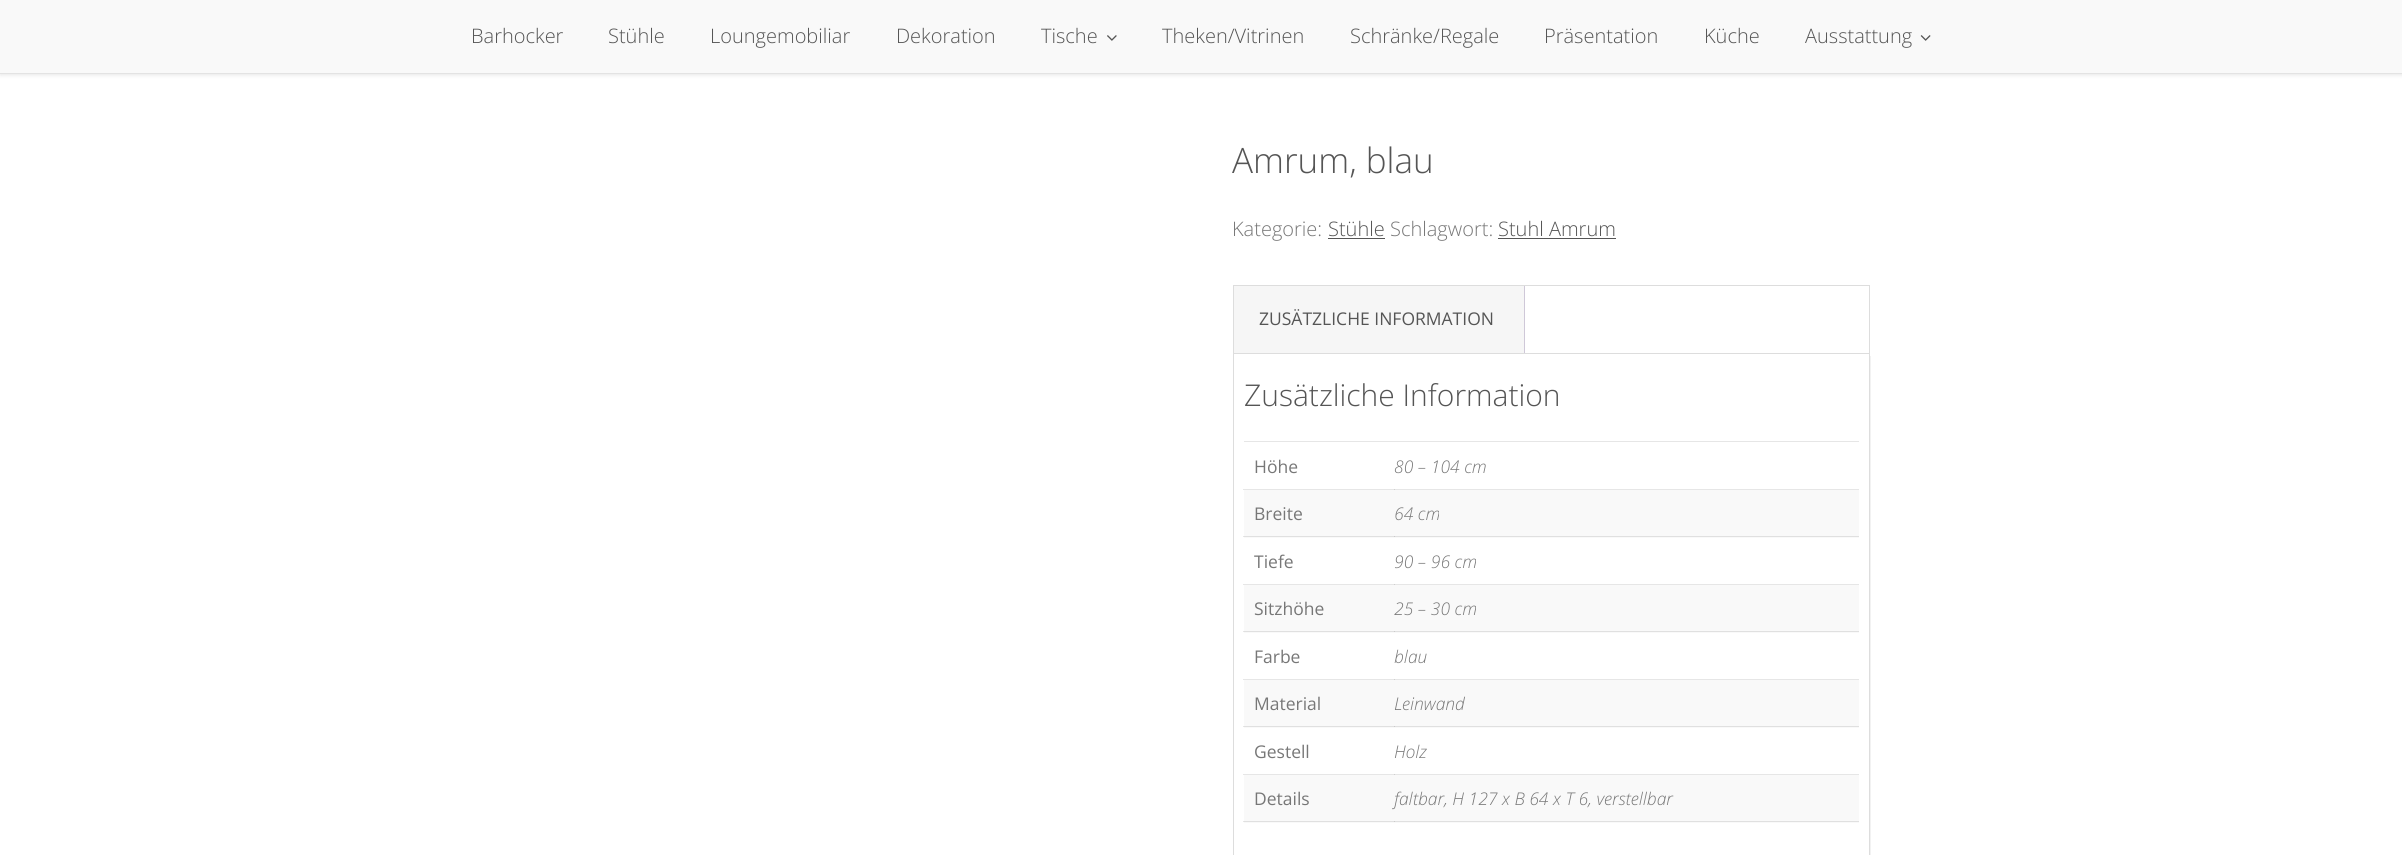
#include <cairo.h>
#include <math.h>
#include <stddef.h>


static void round_rect(cairo_t *cr, double x, double y, double w, double h, double r) {
    cairo_new_sub_path(cr);
    cairo_arc(cr, x + w - r, y + h - r, r, 0, M_PI / 2);
    cairo_arc(cr, x + r, y + h - r, r, M_PI / 2, M_PI);
    cairo_arc(cr, x + r, y + r, r, M_PI, 1.5 * M_PI);
    cairo_arc(cr, x + w - r, y + r, r, 1.5 * M_PI, 2 * M_PI);
    cairo_close_path(cr);
}

static void shadow(cairo_t *cr, double x, double y, double w, double h, double r, double blur, double alpha) {
    cairo_push_group_with_content(cr, CAIRO_CONTENT_ALPHA);
    cairo_set_operator(cr, CAIRO_OPERATOR_SOURCE);
    for (int i = 15; i >= -15 && fmin(w, h) + blur * i / 3 > 0; i -= 2) {
        double e = blur * i / 6;
        cairo_set_source_rgba(cr, 0, 0, 0, alpha * erfc((i - 1) / 8.5) / 2);
        round_rect(cr, x - e, y - e, w + 2 * e, h + 2 * e, fmax(0, fmin(r + e + blur * .6, fmin(w, h) / 2 + e)));
        cairo_fill(cr);
    }
    cairo_pattern_t *soft = cairo_pop_group(cr);
    cairo_mask(cr, soft);
    cairo_pattern_destroy(soft);
}

static void picture(cairo_t *cr, const char *path, double x, double y, double w, double h) {
    cairo_surface_t *image = cairo_image_surface_create_from_png(path);
    cairo_save(cr);
    cairo_set_source_surface(cr, image, x, y);
    cairo_rectangle(cr, x, y, w, h);
    cairo_fill(cr);
    cairo_restore(cr);
    cairo_surface_destroy(image);
}

int main(void) {
    cairo_surface_t *surface = cairo_image_surface_create(CAIRO_FORMAT_RGB24, 2402, 855);
    cairo_t *cr = cairo_create(surface);
    cairo_font_options_t *options = cairo_font_options_create();
    cairo_font_options_set_hint_metrics(options, CAIRO_HINT_METRICS_OFF);
    cairo_font_options_set_hint_style(options, CAIRO_HINT_STYLE_NONE);
    cairo_set_font_options(cr, options);
    cairo_set_miter_limit(cr, 4);
    cairo_set_source_rgb(cr, 1, 1, 1);
    cairo_paint(cr);
    cairo_set_source_rgb(cr, 0.902, 0.902, 0.902);
    cairo_rectangle(cr, 1243, 489, 616, 1);
    cairo_fill(cr);
    cairo_rectangle(cr, 1243, 536, 1, 1);
    cairo_fill(cr);
    cairo_rectangle(cr, 1243, 584, 616, 1);
    cairo_fill(cr);
    cairo_rectangle(cr, 1243, 631, 1, 1);
    cairo_fill(cr);
    cairo_rectangle(cr, 1243, 679, 616, 1);
    cairo_fill(cr);
    cairo_rectangle(cr, 1243, 726, 1, 1);
    cairo_fill(cr);
    cairo_rectangle(cr, 1243, 774, 616, 1);
    cairo_fill(cr);
    cairo_rectangle(cr, 1243, 821, 1, 1);
    cairo_fill(cr);
    cairo_set_source_rgb(cr, 0.8, 0.8, 0.8);
    shadow(cr, 0, 0, 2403, 75, 0, 2, 0.5);
    cairo_set_source_rgb(cr, 0.976, 0.976, 0.976);
    cairo_rectangle(cr, 0, 0, 2402, 73);
    cairo_fill(cr);
    cairo_set_source_rgb(cr, 0.89, 0.89, 0.89);
    cairo_rectangle(cr, 0, 73, 2402, 1);
    cairo_fill(cr);
    cairo_select_font_face(cr, "Open Sans Light", CAIRO_FONT_SLANT_NORMAL, CAIRO_FONT_WEIGHT_NORMAL);
    cairo_set_font_size(cr, 20);
    cairo_set_source_rgb(cr, 0.333, 0.333, 0.333);
    cairo_move_to(cr, 471, 43);
    cairo_show_text(cr, "Barhocker");
    cairo_move_to(cr, 608, 43);
    cairo_show_text(cr, "Stühle");
    cairo_move_to(cr, 710, 43);
    cairo_show_text(cr, "Loungemobiliar");
    cairo_move_to(cr, 896, 43);
    cairo_show_text(cr, "Dekoration");
    cairo_move_to(cr, 1041, 43);
    cairo_show_text(cr, "Tische");
    picture(cr, "img1.png", 1107, 35, 10, 6);
    cairo_move_to(cr, 1162, 43);
    cairo_show_text(cr, "Theken/Vitrinen");
    cairo_move_to(cr, 1350, 43);
    cairo_show_text(cr, "Schränke/Regale");
    cairo_move_to(cr, 1544, 43);
    cairo_show_text(cr, "Präsentation");
    cairo_move_to(cr, 1704, 43);
    cairo_show_text(cr, "Küche");
    cairo_move_to(cr, 1805, 43);
    cairo_show_text(cr, "Ausstattung");
    picture(cr, "img2.png", 1920, 35, 11, 6);
    cairo_set_font_size(cr, 35);
    cairo_move_to(cr, 1232, 173);
    cairo_show_text(cr, "Amrum, blau");
    cairo_set_font_size(cr, 20);
    cairo_set_source_rgb(cr, 0.467, 0.467, 0.467);
    cairo_move_to(cr, 1232, 236);
    cairo_show_text(cr, "Kategorie:");
    cairo_set_source_rgb(cr, 0.333, 0.333, 0.333);
    cairo_move_to(cr, 1328, 236);
    cairo_show_text(cr, "Stühle");
    cairo_rectangle(cr, 1328, 238, 57, 1);
    cairo_fill(cr);
    cairo_set_source_rgb(cr, 0.467, 0.467, 0.467);
    cairo_move_to(cr, 1390, 236);
    cairo_show_text(cr, "Schlagwort:");
    cairo_set_source_rgb(cr, 0.333, 0.333, 0.333);
    cairo_move_to(cr, 1498, 236);
    cairo_show_text(cr, "Stuhl Amrum");
    cairo_rectangle(cr, 1498, 238, 118, 1);
    cairo_fill(cr);
    cairo_set_source_rgb(cr, 0.867, 0.867, 0.867);
    cairo_rectangle(cr, 1233, 285, 637, 1);
    cairo_fill(cr);
    cairo_rectangle(cr, 1869, 285, 1, 69);
    cairo_fill(cr);
    cairo_rectangle(cr, 1233, 285, 1, 69);
    cairo_fill(cr);
    cairo_set_source_rgb(cr, 0.961, 0.961, 0.961);
    cairo_rectangle(cr, 1234, 286, 290, 67);
    cairo_fill(cr);
    cairo_set_source_rgb(cr, 0.812, 0.784, 0.847);
    cairo_rectangle(cr, 1524, 286, 1, 68);
    cairo_fill(cr);
    cairo_select_font_face(cr, "Open Sans", CAIRO_FONT_SLANT_NORMAL, CAIRO_FONT_WEIGHT_NORMAL);
    cairo_set_font_size(cr, 17.5);
    cairo_set_source_rgb(cr, 0.333, 0.333, 0.333);
    cairo_move_to(cr, 1259, 325);
    cairo_show_text(cr, "ZUSÄTZLICHE INFORMATION");
    cairo_set_source_rgb(cr, 0.867, 0.867, 0.867);
    cairo_rectangle(cr, 1234, 353, 635, 1);
    cairo_fill(cr);
    cairo_set_source_rgb(cr, 0.949, 0.949, 0.949);
    cairo_new_path(cr);
    cairo_move_to(cr, 1234, 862);
    cairo_line_to(cr, 1234, 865);
    cairo_line_to(cr, 1871, 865);
    cairo_line_to(cr, 1871, 356);
    cairo_line_to(cr, 1870, 356);
    cairo_line_to(cr, 1870, 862);
    cairo_close_path(cr);
    cairo_fill(cr);
    cairo_set_source_rgb(cr, 0.867, 0.867, 0.867);
    cairo_rectangle(cr, 1869, 354, 1, 501);
    cairo_fill(cr);
    cairo_rectangle(cr, 1233, 354, 1, 501);
    cairo_fill(cr);
    cairo_select_font_face(cr, "Open Sans Light", CAIRO_FONT_SLANT_NORMAL, CAIRO_FONT_WEIGHT_NORMAL);
    cairo_set_font_size(cr, 30);
    cairo_set_source_rgb(cr, 0.333, 0.333, 0.333);
    cairo_move_to(cr, 1244, 406);
    cairo_show_text(cr, "Zusätzliche Information");
    cairo_set_source_rgb(cr, 0.902, 0.902, 0.902);
    cairo_rectangle(cr, 1244, 441, 615, 1);
    cairo_fill(cr);
    cairo_select_font_face(cr, "Open Sans", CAIRO_FONT_SLANT_NORMAL, CAIRO_FONT_WEIGHT_NORMAL);
    cairo_set_font_size(cr, 17.5);
    cairo_set_source_rgb(cr, 0.467, 0.467, 0.467);
    cairo_move_to(cr, 1254, 473);
    cairo_show_text(cr, "Höhe");
    cairo_set_source_rgb(cr, 0.812, 0.812, 0.812);
    cairo_rectangle(cr, 1394, 489, 1, 1);
    cairo_fill(cr);
    cairo_select_font_face(cr, "Open Sans Light", CAIRO_FONT_SLANT_ITALIC, CAIRO_FONT_WEIGHT_NORMAL);
    cairo_set_source_rgb(cr, 0.467, 0.467, 0.467);
    cairo_move_to(cr, 1394, 473);
    cairo_show_text(cr, "80 – 104 cm");
    cairo_set_source_rgb(cr, 0.976, 0.976, 0.976);
    cairo_rectangle(cr, 1244, 490, 615, 48);
    cairo_fill(cr);
    cairo_set_source_rgb(cr, 0.878, 0.878, 0.878);
    cairo_rectangle(cr, 1244, 536, 615, 1);
    cairo_fill(cr);
    cairo_select_font_face(cr, "Open Sans", CAIRO_FONT_SLANT_NORMAL, CAIRO_FONT_WEIGHT_NORMAL);
    cairo_set_source_rgb(cr, 0.467, 0.467, 0.467);
    cairo_move_to(cr, 1254, 520);
    cairo_show_text(cr, "Breite");
    cairo_set_source_rgb(cr, 0.792, 0.792, 0.792);
    cairo_rectangle(cr, 1394, 536, 1, 1);
    cairo_fill(cr);
    cairo_select_font_face(cr, "Open Sans Light", CAIRO_FONT_SLANT_ITALIC, CAIRO_FONT_WEIGHT_NORMAL);
    cairo_set_source_rgb(cr, 0.467, 0.467, 0.467);
    cairo_move_to(cr, 1394, 520);
    cairo_show_text(cr, "64 cm");
    cairo_select_font_face(cr, "Open Sans", CAIRO_FONT_SLANT_NORMAL, CAIRO_FONT_WEIGHT_NORMAL);
    cairo_move_to(cr, 1254, 568);
    cairo_show_text(cr, "Tiefe");
    cairo_set_source_rgb(cr, 0.812, 0.812, 0.812);
    cairo_rectangle(cr, 1394, 584, 1, 1);
    cairo_fill(cr);
    cairo_select_font_face(cr, "Open Sans Light", CAIRO_FONT_SLANT_ITALIC, CAIRO_FONT_WEIGHT_NORMAL);
    cairo_set_source_rgb(cr, 0.467, 0.467, 0.467);
    cairo_move_to(cr, 1394, 568);
    cairo_show_text(cr, "90 – 96 cm");
    cairo_set_source_rgb(cr, 0.976, 0.976, 0.976);
    cairo_rectangle(cr, 1244, 585, 615, 48);
    cairo_fill(cr);
    cairo_set_source_rgb(cr, 0.878, 0.878, 0.878);
    cairo_rectangle(cr, 1244, 631, 615, 1);
    cairo_fill(cr);
    cairo_select_font_face(cr, "Open Sans", CAIRO_FONT_SLANT_NORMAL, CAIRO_FONT_WEIGHT_NORMAL);
    cairo_set_source_rgb(cr, 0.467, 0.467, 0.467);
    cairo_move_to(cr, 1254, 615);
    cairo_show_text(cr, "Sitzhöhe");
    cairo_set_source_rgb(cr, 0.792, 0.792, 0.792);
    cairo_rectangle(cr, 1394, 631, 1, 1);
    cairo_fill(cr);
    cairo_select_font_face(cr, "Open Sans Light", CAIRO_FONT_SLANT_ITALIC, CAIRO_FONT_WEIGHT_NORMAL);
    cairo_set_source_rgb(cr, 0.467, 0.467, 0.467);
    cairo_move_to(cr, 1394, 615);
    cairo_show_text(cr, "25 – 30 cm");
    cairo_select_font_face(cr, "Open Sans", CAIRO_FONT_SLANT_NORMAL, CAIRO_FONT_WEIGHT_NORMAL);
    cairo_move_to(cr, 1254, 663);
    cairo_show_text(cr, "Farbe");
    cairo_set_source_rgb(cr, 0.812, 0.812, 0.812);
    cairo_rectangle(cr, 1394, 679, 1, 1);
    cairo_fill(cr);
    cairo_select_font_face(cr, "Open Sans Light", CAIRO_FONT_SLANT_ITALIC, CAIRO_FONT_WEIGHT_NORMAL);
    cairo_set_source_rgb(cr, 0.467, 0.467, 0.467);
    cairo_move_to(cr, 1394, 663);
    cairo_show_text(cr, "blau");
    cairo_set_source_rgb(cr, 0.976, 0.976, 0.976);
    cairo_rectangle(cr, 1244, 680, 615, 48);
    cairo_fill(cr);
    cairo_set_source_rgb(cr, 0.878, 0.878, 0.878);
    cairo_rectangle(cr, 1244, 726, 615, 1);
    cairo_fill(cr);
    cairo_select_font_face(cr, "Open Sans", CAIRO_FONT_SLANT_NORMAL, CAIRO_FONT_WEIGHT_NORMAL);
    cairo_set_source_rgb(cr, 0.467, 0.467, 0.467);
    cairo_move_to(cr, 1254, 710);
    cairo_show_text(cr, "Material");
    cairo_set_source_rgb(cr, 0.792, 0.792, 0.792);
    cairo_rectangle(cr, 1394, 726, 1, 1);
    cairo_fill(cr);
    cairo_select_font_face(cr, "Open Sans Light", CAIRO_FONT_SLANT_ITALIC, CAIRO_FONT_WEIGHT_NORMAL);
    cairo_set_source_rgb(cr, 0.467, 0.467, 0.467);
    cairo_move_to(cr, 1394, 710);
    cairo_show_text(cr, "Leinwand");
    cairo_select_font_face(cr, "Open Sans", CAIRO_FONT_SLANT_NORMAL, CAIRO_FONT_WEIGHT_NORMAL);
    cairo_move_to(cr, 1254, 758);
    cairo_show_text(cr, "Gestell");
    cairo_set_source_rgb(cr, 0.812, 0.812, 0.812);
    cairo_rectangle(cr, 1394, 774, 1, 1);
    cairo_fill(cr);
    cairo_select_font_face(cr, "Open Sans Light", CAIRO_FONT_SLANT_ITALIC, CAIRO_FONT_WEIGHT_NORMAL);
    cairo_set_source_rgb(cr, 0.467, 0.467, 0.467);
    cairo_move_to(cr, 1394, 758);
    cairo_show_text(cr, "Holz");
    cairo_set_source_rgb(cr, 0.976, 0.976, 0.976);
    cairo_rectangle(cr, 1244, 775, 615, 48);
    cairo_fill(cr);
    cairo_set_source_rgb(cr, 0.878, 0.878, 0.878);
    cairo_rectangle(cr, 1244, 821, 615, 1);
    cairo_fill(cr);
    cairo_select_font_face(cr, "Open Sans", CAIRO_FONT_SLANT_NORMAL, CAIRO_FONT_WEIGHT_NORMAL);
    cairo_set_source_rgb(cr, 0.467, 0.467, 0.467);
    cairo_move_to(cr, 1254, 805);
    cairo_show_text(cr, "Details");
    cairo_set_source_rgb(cr, 0.792, 0.792, 0.792);
    cairo_rectangle(cr, 1394, 821, 1, 1);
    cairo_fill(cr);
    cairo_select_font_face(cr, "Open Sans Light", CAIRO_FONT_SLANT_ITALIC, CAIRO_FONT_WEIGHT_NORMAL);
    cairo_set_source_rgb(cr, 0.467, 0.467, 0.467);
    cairo_move_to(cr, 1394, 805);
    cairo_show_text(cr, "faltbar, H 127 x B 64 x T 6, verstellbar");
    cairo_surface_write_to_png(surface, "page.png");
    cairo_font_options_destroy(options);
    cairo_destroy(cr);
    cairo_surface_destroy(surface);
    return 0;
}
